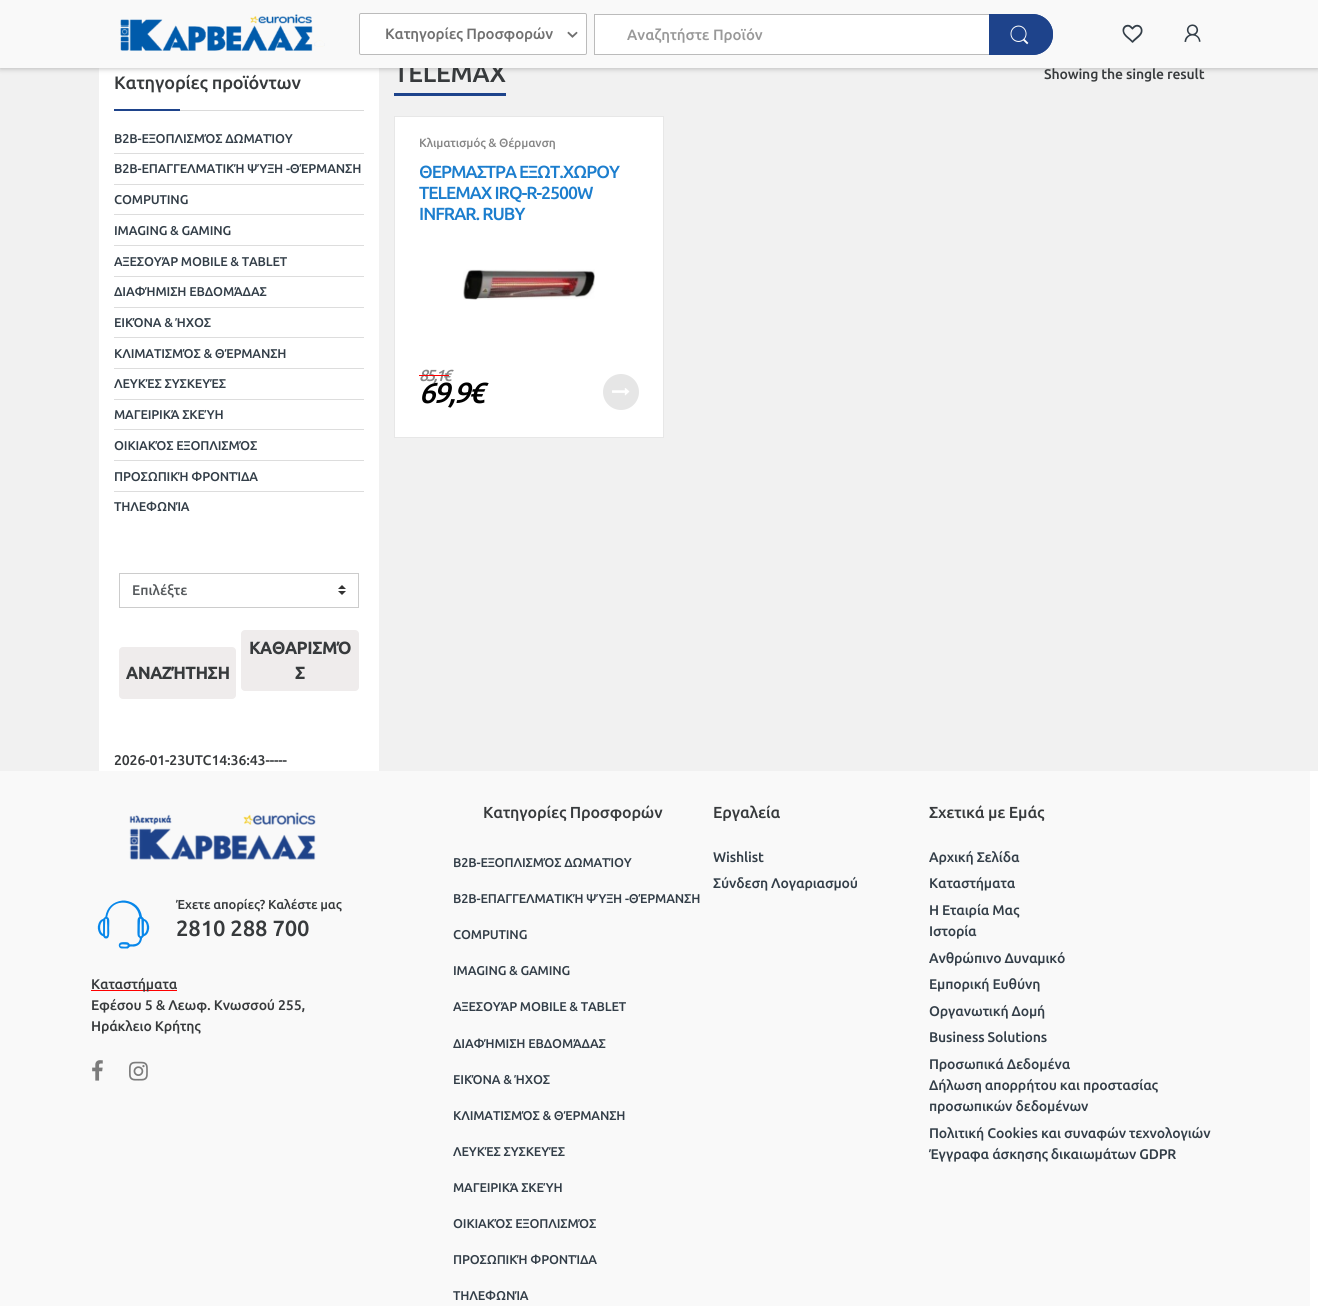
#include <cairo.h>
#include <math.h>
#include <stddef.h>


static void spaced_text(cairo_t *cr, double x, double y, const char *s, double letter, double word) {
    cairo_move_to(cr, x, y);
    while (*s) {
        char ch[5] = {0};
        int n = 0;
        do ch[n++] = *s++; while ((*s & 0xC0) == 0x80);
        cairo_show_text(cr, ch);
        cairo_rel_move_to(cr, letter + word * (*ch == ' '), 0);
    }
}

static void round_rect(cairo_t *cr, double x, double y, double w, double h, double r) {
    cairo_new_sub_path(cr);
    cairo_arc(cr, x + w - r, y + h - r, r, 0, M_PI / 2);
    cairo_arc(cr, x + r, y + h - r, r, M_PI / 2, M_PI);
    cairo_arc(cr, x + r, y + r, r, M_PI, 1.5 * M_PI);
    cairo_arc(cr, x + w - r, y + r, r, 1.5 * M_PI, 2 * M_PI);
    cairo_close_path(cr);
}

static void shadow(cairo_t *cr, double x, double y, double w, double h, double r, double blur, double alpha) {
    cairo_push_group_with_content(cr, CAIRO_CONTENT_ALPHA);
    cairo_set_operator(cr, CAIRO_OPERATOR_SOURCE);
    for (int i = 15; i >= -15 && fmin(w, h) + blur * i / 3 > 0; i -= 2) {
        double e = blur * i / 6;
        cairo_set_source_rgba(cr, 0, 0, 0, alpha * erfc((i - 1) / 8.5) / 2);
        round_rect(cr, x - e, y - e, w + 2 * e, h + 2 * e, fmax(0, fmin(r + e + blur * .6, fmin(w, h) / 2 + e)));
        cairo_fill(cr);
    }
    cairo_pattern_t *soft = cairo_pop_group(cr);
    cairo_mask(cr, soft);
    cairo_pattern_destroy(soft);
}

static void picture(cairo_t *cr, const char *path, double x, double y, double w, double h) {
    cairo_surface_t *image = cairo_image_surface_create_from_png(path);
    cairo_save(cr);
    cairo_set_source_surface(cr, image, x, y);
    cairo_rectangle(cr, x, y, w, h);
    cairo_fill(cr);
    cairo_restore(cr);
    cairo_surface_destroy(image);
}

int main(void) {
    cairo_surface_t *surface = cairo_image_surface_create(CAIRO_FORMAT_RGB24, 1318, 1306);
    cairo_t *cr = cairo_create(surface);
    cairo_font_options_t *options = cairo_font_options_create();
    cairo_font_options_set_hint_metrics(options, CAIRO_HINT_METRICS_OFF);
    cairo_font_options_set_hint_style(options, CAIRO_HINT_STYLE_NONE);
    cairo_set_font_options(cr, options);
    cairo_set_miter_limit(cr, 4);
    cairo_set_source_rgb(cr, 1, 1, 1);
    cairo_paint(cr);
    cairo_set_source_rgb(cr, 0.945, 0.945, 0.945);
    cairo_rectangle(cr, 0, 68, 1318, 703);
    cairo_fill(cr);
    cairo_set_source_rgb(cr, 1, 1, 1);
    cairo_rectangle(cr, 99, 68, 280, 703);
    cairo_fill(cr);
    cairo_set_source_rgb(cr, 0.004, 0.004, 0.004);
    shadow(cr, 0, 0, 1318, 68, 0, 3, 0.3);
    cairo_select_font_face(cr, "Ubuntu Medium", CAIRO_FONT_SLANT_NORMAL, CAIRO_FONT_WEIGHT_NORMAL);
    cairo_set_font_size(cr, 25);
    cairo_set_source_rgb(cr, 0.216, 0.227, 0.235);
    spaced_text(cr, 394, 82, "TELEMAX", -0.15, 0);
    cairo_set_source_rgb(cr, 0.973, 0.973, 0.973);
    cairo_rectangle(cr, 0, 0, 1318, 68);
    cairo_fill(cr);
    picture(cr, "img1.png", 120, 14, 205, 37);
    cairo_set_source_rgb(cr, 1, 1, 1);
    round_rect(cr, 359.5, 13.5, 227, 41, 1.5);
    cairo_fill_preserve(cr);
    cairo_set_source_rgb(cr, 0.733, 0.733, 0.733);
    cairo_set_line_width(cr, 1);
    cairo_stroke(cr);
    cairo_set_font_size(cr, 15);
    cairo_set_source_rgb(cr, 0.439, 0.439, 0.439);
    spaced_text(cr, 385, 39, "Κατηγορίες Προσφορών", -0.15, 0);
    picture(cr, "img2.png", 567, 31, 11, 7);
    cairo_set_source_rgb(cr, 1, 1, 1);
    cairo_rectangle(cr, 595, 15, 394, 39);
    cairo_fill(cr);
    cairo_rectangle(cr, 594.5, 14.5, 396, 40);
    cairo_set_source_rgb(cr, 0.733, 0.733, 0.733);
    cairo_stroke(cr);
    cairo_set_source_rgb(cr, 0.6, 0.6, 0.6);
    cairo_move_to(cr, 627, 40);
    cairo_show_text(cr, "Αναζητήστε Προϊόν");
    cairo_set_source_rgb(cr, 0.118, 0.263, 0.545);
    cairo_new_path(cr);
    cairo_move_to(cr, 989, 14);
    cairo_line_to(cr, 1032.5, 14);
    cairo_curve_to(cr, 1044, 14, 1053, 23, 1053, 34.5);
    cairo_curve_to(cr, 1053, 46, 1044, 55, 1032.5, 55);
    cairo_line_to(cr, 989, 55);
    cairo_close_path(cr);
    cairo_fill(cr);
    cairo_set_fill_rule(cr, CAIRO_FILL_RULE_EVEN_ODD);
    cairo_new_path(cr);
    cairo_move_to(cr, 989, 14);
    cairo_line_to(cr, 1032, 14);
    cairo_curve_to(cr, 1044, 14, 1053, 23, 1053, 34);
    cairo_curve_to(cr, 1053, 46, 1044, 55, 1032, 55);
    cairo_line_to(cr, 989, 55);
    cairo_close_path(cr);
    cairo_move_to(cr, 989, 16);
    cairo_line_to(cr, 1032, 16);
    cairo_curve_to(cr, 1043, 16, 1051, 24, 1051, 34);
    cairo_curve_to(cr, 1051, 45, 1043, 53, 1032, 53);
    cairo_line_to(cr, 989, 53);
    cairo_close_path(cr);
    cairo_fill(cr);
    picture(cr, "img3.png", 1010, 25, 19, 20);
    picture(cr, "img4.png", 1122, 24, 21, 19);
    picture(cr, "img5.png", 1184, 24, 17, 18);
    cairo_set_source_rgb(cr, 0.855, 0.855, 0.855);
    cairo_rectangle(cr, 180, 110, 184, 1);
    cairo_fill(cr);
    cairo_set_font_size(cr, 18);
    cairo_set_source_rgb(cr, 0.216, 0.227, 0.235);
    spaced_text(cr, 114, 89, "Κατηγορίες προϊόντων", -0.15, 0);
    cairo_set_source_rgb(cr, 0.118, 0.263, 0.545);
    cairo_rectangle(cr, 114, 109, 66, 2);
    cairo_fill(cr);
    cairo_set_font_size(cr, 12.75);
    cairo_set_source_rgb(cr, 0.2, 0.243, 0.282);
    spaced_text(cr, 114, 143, "B2B-ΕΞΟΠΛΙΣΜΌΣ ΔΩΜΑΤΊΟΥ", -0.15, 0);
    cairo_set_source_rgb(cr, 0.867, 0.867, 0.867);
    cairo_rectangle(cr, 114, 153, 250, 1);
    cairo_fill(cr);
    cairo_set_source_rgb(cr, 0.2, 0.243, 0.282);
    spaced_text(cr, 114, 173, "B2B-ΕΠΑΓΓΕΛΜΑΤΙΚΉ ΨΎΞΗ -ΘΈΡΜΑΝΣΗ", -0.15, 0);
    cairo_set_source_rgb(cr, 0.867, 0.867, 0.867);
    cairo_rectangle(cr, 114, 184, 250, 1);
    cairo_fill(cr);
    cairo_set_source_rgb(cr, 0.2, 0.243, 0.282);
    spaced_text(cr, 114, 204, "COMPUTING", -0.15, 0);
    cairo_set_source_rgb(cr, 0.867, 0.867, 0.867);
    cairo_rectangle(cr, 114, 214, 250, 1);
    cairo_fill(cr);
    cairo_set_source_rgb(cr, 0.2, 0.243, 0.282);
    spaced_text(cr, 114, 235, "IMAGING & GAMING", -0.15, 0);
    cairo_set_source_rgb(cr, 0.867, 0.867, 0.867);
    cairo_rectangle(cr, 114, 245, 250, 1);
    cairo_fill(cr);
    cairo_set_source_rgb(cr, 0.2, 0.243, 0.282);
    spaced_text(cr, 114, 266, "ΑΞΕΣΟΥΆΡ MOBILE & TABLET", -0.15, 0);
    cairo_set_source_rgb(cr, 0.867, 0.867, 0.867);
    cairo_rectangle(cr, 114, 276, 250, 1);
    cairo_fill(cr);
    cairo_set_source_rgb(cr, 0.2, 0.243, 0.282);
    spaced_text(cr, 114, 296, "ΔΙΑΦΉΜΙΣΗ ΕΒΔΟΜΆΔΑΣ", -0.15, 0);
    cairo_set_source_rgb(cr, 0.867, 0.867, 0.867);
    cairo_rectangle(cr, 114, 307, 250, 1);
    cairo_fill(cr);
    cairo_set_source_rgb(cr, 0.2, 0.243, 0.282);
    spaced_text(cr, 114, 327, "ΕΙΚΌΝΑ & ΉΧΟΣ", -0.15, 0);
    cairo_set_source_rgb(cr, 0.867, 0.867, 0.867);
    cairo_rectangle(cr, 114, 337, 250, 1);
    cairo_fill(cr);
    cairo_set_source_rgb(cr, 0.2, 0.243, 0.282);
    spaced_text(cr, 114, 358, "ΚΛΙΜΑΤΙΣΜΌΣ & ΘΈΡΜΑΝΣΗ", -0.15, 0);
    cairo_set_source_rgb(cr, 0.867, 0.867, 0.867);
    cairo_rectangle(cr, 114, 368, 250, 1);
    cairo_fill(cr);
    cairo_set_source_rgb(cr, 0.2, 0.243, 0.282);
    spaced_text(cr, 114, 388, "ΛΕΥΚΈΣ ΣΥΣΚΕΥΈΣ", -0.15, 0);
    cairo_set_source_rgb(cr, 0.867, 0.867, 0.867);
    cairo_rectangle(cr, 114, 399, 250, 1);
    cairo_fill(cr);
    cairo_set_source_rgb(cr, 0.2, 0.243, 0.282);
    spaced_text(cr, 114, 419, "ΜΑΓΕΙΡΙΚΆ ΣΚΕΎΗ", -0.15, 0);
    cairo_set_source_rgb(cr, 0.867, 0.867, 0.867);
    cairo_rectangle(cr, 114, 429, 250, 1);
    cairo_fill(cr);
    cairo_set_source_rgb(cr, 0.2, 0.243, 0.282);
    spaced_text(cr, 114, 450, "ΟΙΚΙΑΚΌΣ ΕΞΟΠΛΙΣΜΌΣ", -0.15, 0);
    cairo_set_source_rgb(cr, 0.867, 0.867, 0.867);
    cairo_rectangle(cr, 114, 460, 250, 1);
    cairo_fill(cr);
    cairo_set_source_rgb(cr, 0.2, 0.243, 0.282);
    spaced_text(cr, 114, 481, "ΠΡΟΣΩΠΙΚΉ ΦΡΟΝΤΊΔΑ", -0.15, 0);
    cairo_set_source_rgb(cr, 0.867, 0.867, 0.867);
    cairo_rectangle(cr, 114, 491, 250, 1);
    cairo_fill(cr);
    cairo_set_source_rgb(cr, 0.2, 0.243, 0.282);
    spaced_text(cr, 114, 511, "ΤΗΛΕΦΩΝΊΑ", -0.15, 0);
    picture(cr, "img6.png", 338, 585, 8, 10);
    cairo_rectangle(cr, 119.5, 573.5, 239, 34);
    cairo_set_source_rgb(cr, 0.8, 0.8, 0.8);
    cairo_stroke(cr);
    cairo_set_font_size(cr, 14);
    cairo_set_source_rgb(cr, 0.333, 0.349, 0.361);
    cairo_move_to(cr, 132, 595);
    cairo_show_text(cr, "Επιλέξτε");
    cairo_set_source_rgb(cr, 0.937, 0.925, 0.925);
    round_rect(cr, 119, 647, 117, 52, 4);
    cairo_fill(cr);
    cairo_select_font_face(cr, "Ubuntu", CAIRO_FONT_SLANT_NORMAL, CAIRO_FONT_WEIGHT_BOLD);
    cairo_set_font_size(cr, 17);
    cairo_set_source_rgb(cr, 0.216, 0.227, 0.235);
    cairo_move_to(cr, 126, 679);
    cairo_show_text(cr, "ΑΝΑΖΉΤΗΣΗ");
    cairo_set_source_rgb(cr, 0.937, 0.925, 0.925);
    round_rect(cr, 241, 630, 118, 61, 4);
    cairo_fill(cr);
    cairo_set_source_rgb(cr, 0.216, 0.227, 0.235);
    cairo_move_to(cr, 249, 654);
    cairo_show_text(cr, "ΚΑΘΑΡΙΣΜΌ");
    cairo_move_to(cr, 295, 679);
    cairo_show_text(cr, "Σ");
    cairo_select_font_face(cr, "Ubuntu Medium", CAIRO_FONT_SLANT_NORMAL, CAIRO_FONT_WEIGHT_NORMAL);
    cairo_set_font_size(cr, 14);
    spaced_text(cr, 114, 765, "2026-01-23UTC14:36:43-----", -0.15, 0);
    cairo_set_source_rgb(cr, 0.114, 0.263, 0.545);
    cairo_rectangle(cr, 394, 93, 112, 3);
    cairo_fill(cr);
    cairo_set_source_rgb(cr, 0.216, 0.227, 0.235);
    spaced_text(cr, 1044, 79, "Showing the single result", -0.15, 0);
    cairo_set_source_rgb(cr, 1, 1, 1);
    cairo_rectangle(cr, 394.5, 116.5, 269, 321);
    cairo_fill_preserve(cr);
    cairo_set_source_rgb(cr, 0.906, 0.906, 0.906);
    cairo_stroke(cr);
    cairo_set_font_size(cr, 12);
    cairo_set_source_rgb(cr, 0.529, 0.529, 0.529);
    spaced_text(cr, 419, 147, "Κλιματισμός & Θέρμανση", -0.15, 0);
    cairo_set_font_size(cr, 17.6);
    cairo_set_source_rgb(cr, 0.11, 0.494, 0.808);
    spaced_text(cr, 419, 178, "ΘΕΡΜΑΣΤΡΑ ΕΞΩΤ.ΧΩΡΟΥ", -1, 0);
    spaced_text(cr, 419, 199, "TELEMAX IRQ-R-2500W", -1, 0);
    spaced_text(cr, 419, 220, "INFRAR. RUBY", -1, 0);
    picture(cr, "img7.png", 463, 269, 132, 31);
    cairo_select_font_face(cr, "Ubuntu Medium", CAIRO_FONT_SLANT_ITALIC, CAIRO_FONT_WEIGHT_NORMAL);
    cairo_set_font_size(cr, 16);
    cairo_set_source_rgb(cr, 0.529, 0.529, 0.529);
    spaced_text(cr, 419, 381, "85,1€", -2, 0);
    cairo_set_source_rgb(cr, 1, 0, 0);
    cairo_rectangle(cr, 419, 375, 30, 1);
    cairo_fill(cr);
    cairo_set_font_size(cr, 29);
    cairo_set_source_rgb(cr, 0, 0, 0);
    spaced_text(cr, 419, 403, "69,9€", -2, 0);
    cairo_set_source_rgb(cr, 0.902, 0.902, 0.902);
    cairo_new_path(cr);
    cairo_arc(cr, 621, 392, 18, 0, 2 * M_PI);
    cairo_fill(cr);
    picture(cr, "img8.png", 612, 388, 18, 8);
    cairo_set_source_rgb(cr, 0.973, 0.973, 0.973);
    cairo_rectangle(cr, 0, 771, 1310, 535);
    cairo_fill(cr);
    picture(cr, "img9.png", 129, 812, 187, 48);
    picture(cr, "img10.png", 97, 900, 53, 49);
    cairo_select_font_face(cr, "Ubuntu Medium", CAIRO_FONT_SLANT_NORMAL, CAIRO_FONT_WEIGHT_NORMAL);
    cairo_set_font_size(cr, 13);
    cairo_set_source_rgb(cr, 0.216, 0.227, 0.235);
    spaced_text(cr, 176, 909, "Έχετε απορίες? Καλέστε μας", -0.15, 0);
    cairo_set_font_size(cr, 22);
    spaced_text(cr, 176, 936, "2810 288 700", -0.15, 0);
    cairo_set_source_rgb(cr, 1, 0, 0);
    cairo_rectangle(cr, 91, 990, 86, 1);
    cairo_fill(cr);
    cairo_set_font_size(cr, 14);
    cairo_set_source_rgb(cr, 0.216, 0.227, 0.235);
    spaced_text(cr, 91, 989, "Καταστήματα", -0.15, 0);
    spaced_text(cr, 91, 1010, "Εφέσου 5 & Λεωφ. Κνωσσού 255,", -0.15, 0);
    spaced_text(cr, 91, 1031, "Ηράκλειο Κρήτης", -0.15, 0);
    picture(cr, "img11.png", 92, 1060, 11, 21);
    picture(cr, "img12.png", 129, 1061, 19, 20);
    cairo_set_font_size(cr, 16);
    spaced_text(cr, 483, 818, "Κατηγορίες Προσφορών", -0.15, 0);
    cairo_set_font_size(cr, 12.75);
    cairo_set_source_rgb(cr, 0.2, 0.243, 0.282);
    spaced_text(cr, 453, 867, "B2B-ΕΞΟΠΛΙΣΜΌΣ ΔΩΜΑΤΊΟΥ", -0.15, 0);
    spaced_text(cr, 453, 903, "B2B-ΕΠΑΓΓΕΛΜΑΤΙΚΉ ΨΎΞΗ -ΘΈΡΜΑΝΣΗ", -0.15, 0);
    spaced_text(cr, 453, 939, "COMPUTING", -0.15, 0);
    spaced_text(cr, 453, 975, "IMAGING & GAMING", -0.15, 0);
    spaced_text(cr, 453, 1011, "ΑΞΕΣΟΥΆΡ MOBILE & TABLET", -0.15, 0);
    spaced_text(cr, 453, 1048, "ΔΙΑΦΉΜΙΣΗ ΕΒΔΟΜΆΔΑΣ", -0.15, 0);
    spaced_text(cr, 453, 1084, "ΕΙΚΌΝΑ & ΉΧΟΣ", -0.15, 0);
    spaced_text(cr, 453, 1120, "ΚΛΙΜΑΤΙΣΜΌΣ & ΘΈΡΜΑΝΣΗ", -0.15, 0);
    spaced_text(cr, 453, 1156, "ΛΕΥΚΈΣ ΣΥΣΚΕΥΈΣ", -0.15, 0);
    spaced_text(cr, 453, 1192, "ΜΑΓΕΙΡΙΚΆ ΣΚΕΎΗ", -0.15, 0);
    spaced_text(cr, 453, 1228, "ΟΙΚΙΑΚΌΣ ΕΞΟΠΛΙΣΜΌΣ", -0.15, 0);
    spaced_text(cr, 453, 1264, "ΠΡΟΣΩΠΙΚΉ ΦΡΟΝΤΊΔΑ", -0.15, 0);
    spaced_text(cr, 453, 1300, "ΤΗΛΕΦΩΝΊΑ", -0.15, 0);
    cairo_set_font_size(cr, 16);
    cairo_set_source_rgb(cr, 0.216, 0.227, 0.235);
    spaced_text(cr, 713, 818, "Εργαλεία", -0.15, 0);
    cairo_set_font_size(cr, 14);
    cairo_set_source_rgb(cr, 0.2, 0.243, 0.282);
    spaced_text(cr, 713, 862, "Wishlist", -0.15, 0);
    spaced_text(cr, 713, 888, "Σύνδεση Λογαριασμού", -0.15, 0);
    cairo_set_font_size(cr, 16);
    cairo_set_source_rgb(cr, 0.216, 0.227, 0.235);
    spaced_text(cr, 929, 818, "Σχετικά με Εμάς", -0.15, 0);
    cairo_set_font_size(cr, 14);
    cairo_set_source_rgb(cr, 0.2, 0.243, 0.282);
    spaced_text(cr, 929, 862, "Αρχική Σελίδα", -0.15, 0);
    spaced_text(cr, 929, 888, "Καταστήματα", -0.15, 0);
    spaced_text(cr, 929, 915, "Η Εταιρία Μας", -0.15, 0);
    spaced_text(cr, 929, 936, "Ιστορία", -0.15, 0);
    spaced_text(cr, 929, 963, "Ανθρώπινο Δυναμικό", -0.15, 0);
    spaced_text(cr, 929, 989, "Εμπορική Ευθύνη", -0.15, 0);
    spaced_text(cr, 929, 1016, "Οργανωτική Δομή", -0.15, 0);
    spaced_text(cr, 929, 1042, "Business Solutions", -0.15, 0);
    spaced_text(cr, 929, 1069, "Προσωπικά Δεδομένα", -0.15, 0);
    spaced_text(cr, 929, 1090, "Δήλωση απορρήτου και προστασίας", -0.15, 0);
    spaced_text(cr, 929, 1111, "προσωπικών δεδομένων", -0.15, 0);
    spaced_text(cr, 929, 1138, "Πολιτική Cookies και συναφών τεχνολογιών", -0.15, 0);
    spaced_text(cr, 929, 1159, "Έγγραφα άσκησης δικαιωμάτων GDPR", -0.15, 0);
    cairo_surface_write_to_png(surface, "page.png");
    cairo_font_options_destroy(options);
    cairo_destroy(cr);
    cairo_surface_destroy(surface);
    return 0;
}
